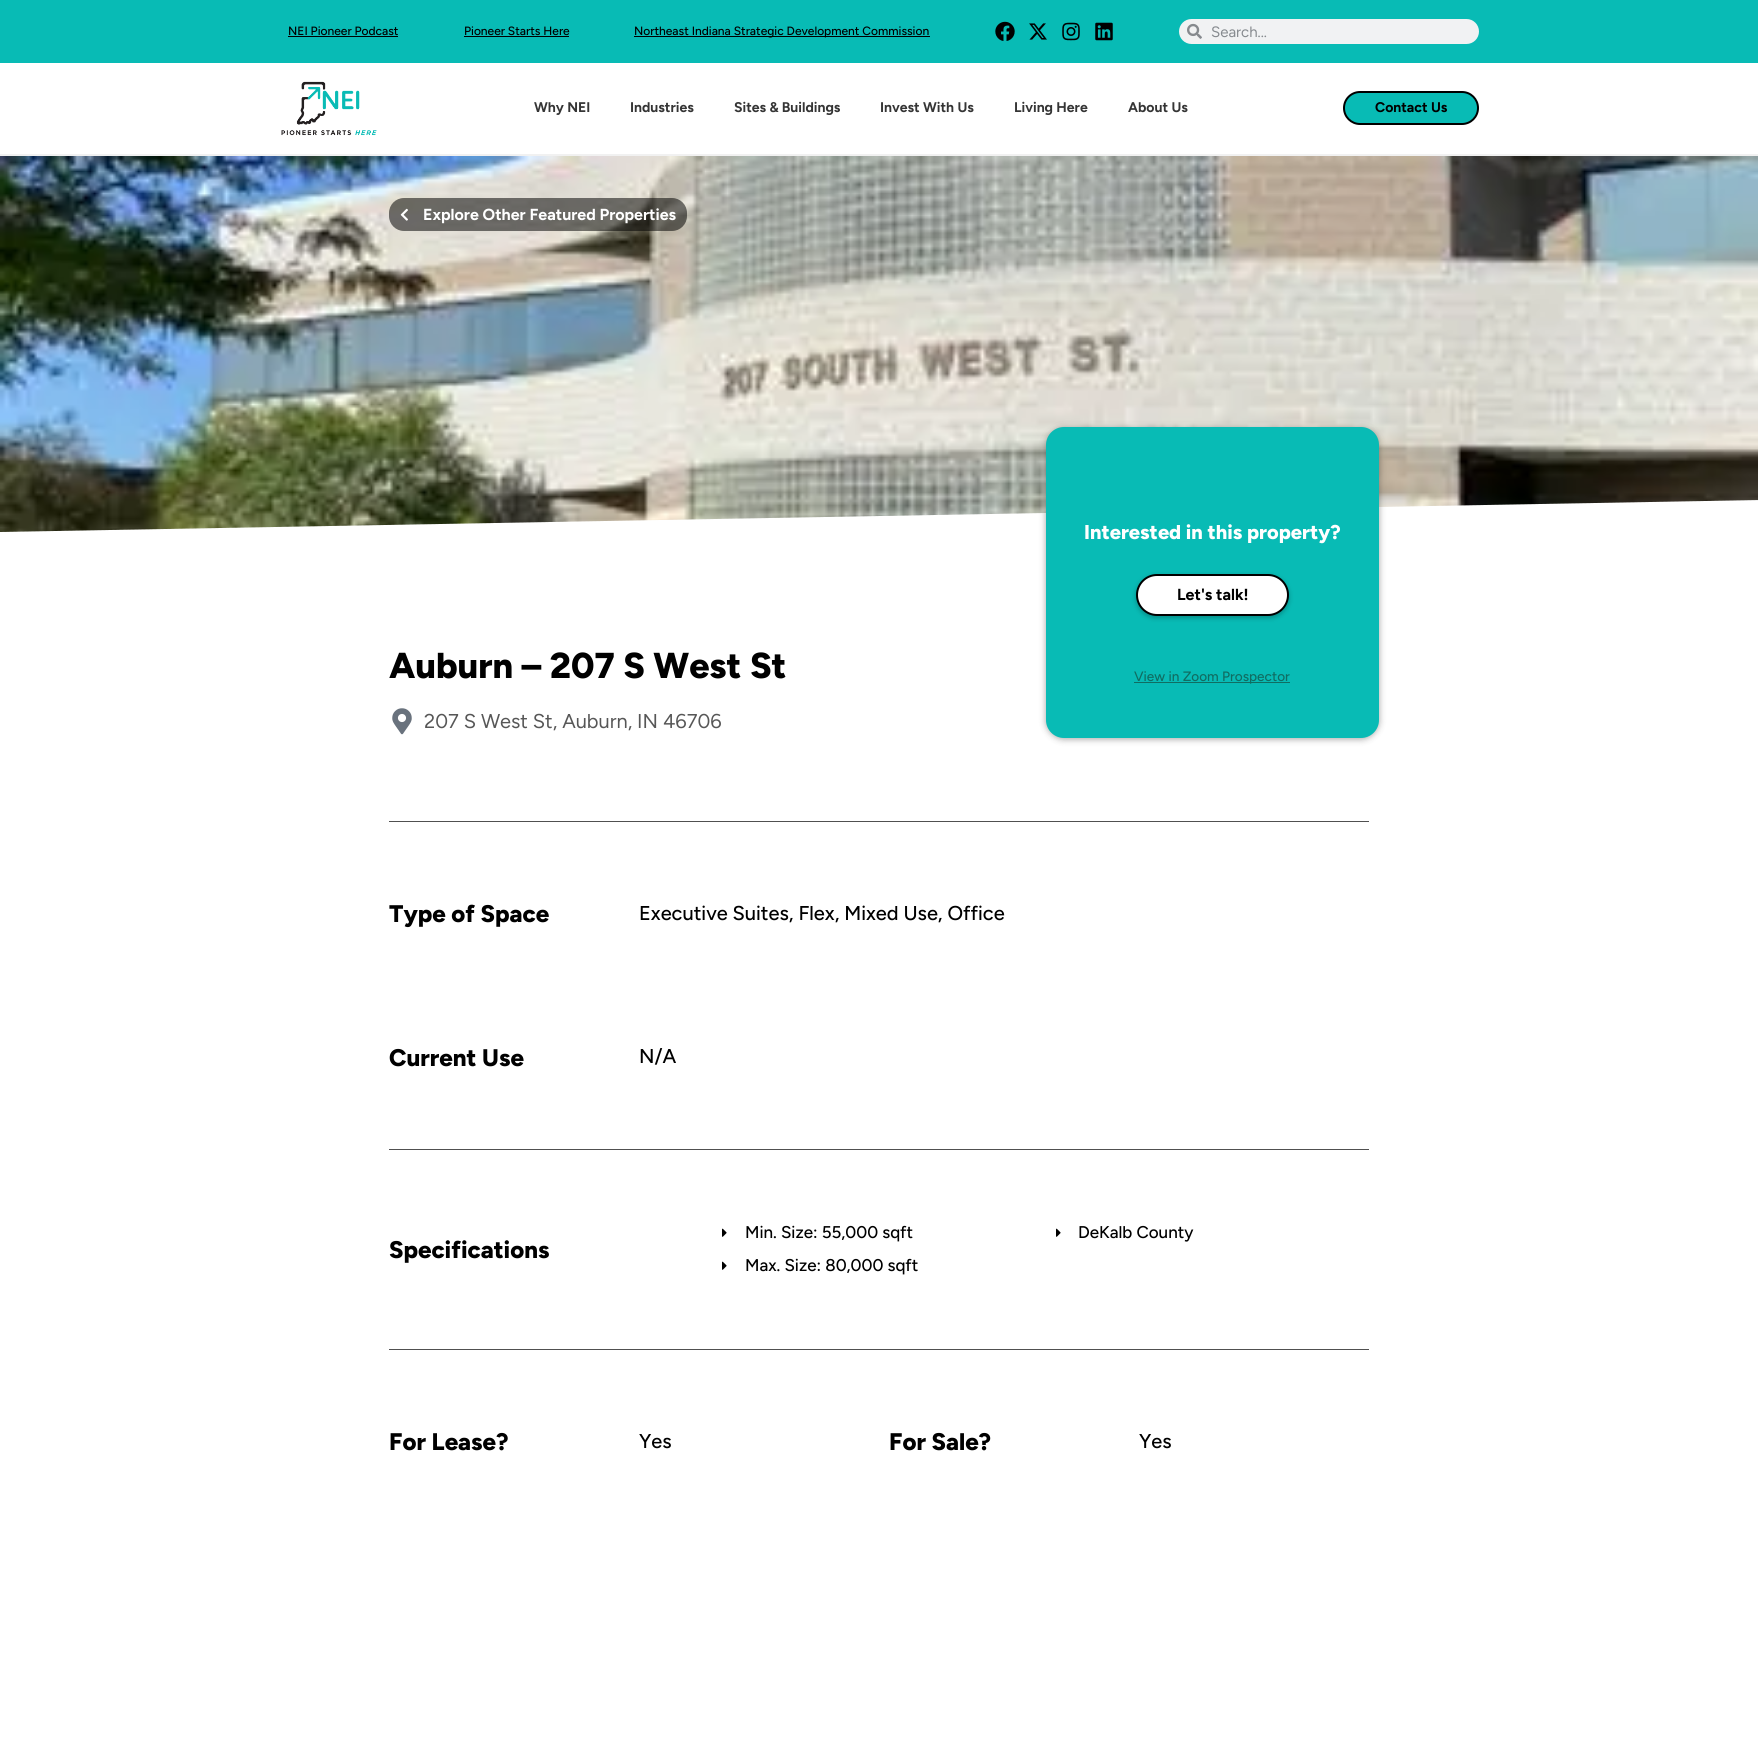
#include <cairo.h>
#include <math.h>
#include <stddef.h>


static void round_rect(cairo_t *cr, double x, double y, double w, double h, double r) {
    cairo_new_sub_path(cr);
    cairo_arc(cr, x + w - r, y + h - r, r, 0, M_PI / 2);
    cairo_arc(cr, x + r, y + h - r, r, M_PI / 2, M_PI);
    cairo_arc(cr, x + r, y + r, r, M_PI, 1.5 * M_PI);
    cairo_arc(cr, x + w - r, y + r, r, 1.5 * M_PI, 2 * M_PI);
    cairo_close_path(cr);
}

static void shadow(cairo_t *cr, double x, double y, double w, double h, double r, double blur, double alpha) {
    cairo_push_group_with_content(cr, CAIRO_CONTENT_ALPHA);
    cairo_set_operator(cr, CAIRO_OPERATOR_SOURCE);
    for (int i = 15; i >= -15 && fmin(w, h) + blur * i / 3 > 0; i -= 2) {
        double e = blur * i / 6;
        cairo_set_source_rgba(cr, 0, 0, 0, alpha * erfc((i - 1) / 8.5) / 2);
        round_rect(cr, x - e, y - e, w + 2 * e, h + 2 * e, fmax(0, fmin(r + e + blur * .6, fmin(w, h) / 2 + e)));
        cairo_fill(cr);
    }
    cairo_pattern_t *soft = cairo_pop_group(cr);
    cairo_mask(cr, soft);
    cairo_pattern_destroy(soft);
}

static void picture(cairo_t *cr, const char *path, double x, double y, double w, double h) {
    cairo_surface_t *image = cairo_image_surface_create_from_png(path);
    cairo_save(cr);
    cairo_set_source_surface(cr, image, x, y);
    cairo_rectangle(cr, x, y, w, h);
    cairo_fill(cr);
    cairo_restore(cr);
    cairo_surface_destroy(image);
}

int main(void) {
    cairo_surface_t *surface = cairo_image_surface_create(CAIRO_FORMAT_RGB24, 1758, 1742);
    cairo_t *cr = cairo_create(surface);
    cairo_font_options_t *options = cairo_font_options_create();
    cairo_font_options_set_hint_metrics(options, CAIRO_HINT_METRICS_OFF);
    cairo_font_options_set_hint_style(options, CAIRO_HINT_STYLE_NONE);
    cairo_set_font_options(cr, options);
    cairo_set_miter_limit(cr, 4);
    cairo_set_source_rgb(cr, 1, 1, 1);
    cairo_paint(cr);
    cairo_set_source_rgb(cr, 0.035, 0.733, 0.71);
    cairo_rectangle(cr, 0, 0, 1758, 63);
    cairo_fill(cr);
    cairo_select_font_face(cr, "Figtree Medium", CAIRO_FONT_SLANT_NORMAL, CAIRO_FONT_WEIGHT_NORMAL);
    cairo_set_font_size(cr, 12);
    cairo_set_source_rgb(cr, 0, 0, 0);
    cairo_move_to(cr, 288, 35);
    cairo_show_text(cr, "NEI Pioneer Podcast");
    cairo_rectangle(cr, 288, 36, 110, 1);
    cairo_fill(cr);
    cairo_move_to(cr, 464, 35);
    cairo_show_text(cr, "Pioneer Starts Here");
    cairo_rectangle(cr, 464, 36, 105, 1);
    cairo_fill(cr);
    cairo_rectangle(cr, 634, 36, 296, 1);
    cairo_fill(cr);
    cairo_move_to(cr, 634, 35);
    cairo_show_text(cr, "Northeast Indiana Strategic Development Commission");
    picture(cr, "img1.png", 995, 21, 20, 20);
    picture(cr, "img2.png", 1029, 23, 18, 17);
    picture(cr, "img3.png", 1062, 22, 18, 19);
    picture(cr, "img4.png", 1095, 22, 18, 19);
    cairo_set_source_rgb(cr, 0.945, 0.949, 0.953);
    round_rect(cr, 1179, 19, 300, 25, 12.5);
    cairo_fill(cr);
    picture(cr, "img5.png", 1187, 23, 15, 16);
    cairo_select_font_face(cr, "Figtree", CAIRO_FONT_SLANT_NORMAL, CAIRO_FONT_WEIGHT_NORMAL);
    cairo_set_font_size(cr, 15);
    cairo_set_source_rgb(cr, 0.525, 0.541, 0.557);
    cairo_move_to(cr, 1211, 37);
    cairo_show_text(cr, "Search...");
    cairo_set_source_rgb(cr, 0.945, 0.945, 0.945);
    cairo_rectangle(cr, 0, 154, 1758, 2);
    cairo_fill(cr);
    picture(cr, "img6.png", 281, 81, 96, 55);
    cairo_select_font_face(cr, "Figtree", CAIRO_FONT_SLANT_NORMAL, CAIRO_FONT_WEIGHT_BOLD);
    cairo_set_font_size(cr, 14);
    cairo_set_source_rgb(cr, 0.208, 0.208, 0.208);
    cairo_move_to(cr, 534, 112);
    cairo_show_text(cr, "Why NEI");
    cairo_move_to(cr, 630, 112);
    cairo_show_text(cr, "Industries");
    cairo_move_to(cr, 734, 112);
    cairo_show_text(cr, "Sites & Buildings");
    cairo_move_to(cr, 880, 112);
    cairo_show_text(cr, "Invest With Us");
    cairo_move_to(cr, 1014, 112);
    cairo_show_text(cr, "Living Here");
    cairo_move_to(cr, 1128, 112);
    cairo_show_text(cr, "About Us");
    cairo_set_source_rgb(cr, 0.035, 0.733, 0.71);
    round_rect(cr, 1344, 92, 134, 32, 16);
    cairo_fill_preserve(cr);
    cairo_set_source_rgb(cr, 0, 0, 0);
    cairo_stroke(cr);
    cairo_move_to(cr, 1375, 112);
    cairo_show_text(cr, "Contact Us");
    picture(cr, "img7.png", 0, 156, 1758, 376);
    cairo_set_source_rgba(cr, 0, 0, 0, 0.53);
    round_rect(cr, 389, 198, 298, 33, 15);
    cairo_fill(cr);
    picture(cr, "img8.png", 400, 208, 8, 13);
    cairo_set_font_size(cr, 16);
    cairo_set_source_rgb(cr, 1, 1, 1);
    cairo_move_to(cr, 423, 220);
    cairo_show_text(cr, "Explore Other Featured Properties");
    cairo_new_path(cr);
    cairo_move_to(cr, -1, 532);
    cairo_line_to(cr, -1, 535);
    cairo_line_to(cr, 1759, 535);
    cairo_line_to(cr, 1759, 500);
    cairo_close_path(cr);
    cairo_fill(cr);
    cairo_select_font_face(cr, "Figtree ExtraBold", CAIRO_FONT_SLANT_NORMAL, CAIRO_FONT_WEIGHT_NORMAL);
    cairo_set_font_size(cr, 36);
    cairo_set_source_rgb(cr, 0, 0, 0);
    cairo_move_to(cr, 389, 678);
    cairo_show_text(cr, "Auburn – 207 S West St");
    picture(cr, "img9.png", 392, 708, 20, 27);
    cairo_select_font_face(cr, "Figtree", CAIRO_FONT_SLANT_NORMAL, CAIRO_FONT_WEIGHT_NORMAL);
    cairo_set_font_size(cr, 20);
    cairo_set_source_rgb(cr, 0.341, 0.341, 0.341);
    cairo_move_to(cr, 424, 728);
    cairo_show_text(cr, "207 S West St, Auburn, IN 46706");
    cairo_set_source_rgb(cr, 0, 0, 0);
    shadow(cr, 1046, 428, 333, 311, 18, 3.5, 0.36);
    cairo_set_source_rgb(cr, 0.035, 0.733, 0.71);
    round_rect(cr, 1046, 427, 333, 311, 18);
    cairo_fill(cr);
    cairo_select_font_face(cr, "Figtree ExtraBold", CAIRO_FONT_SLANT_NORMAL, CAIRO_FONT_WEIGHT_NORMAL);
    cairo_set_source_rgb(cr, 1, 1, 1);
    cairo_move_to(cr, 1084, 539);
    cairo_show_text(cr, "Interested in this property?");
    cairo_set_source_rgb(cr, 0, 0, 0);
    shadow(cr, 1136, 576, 153, 42, 21, 2.5, 0.26);
    cairo_set_source_rgb(cr, 1, 1, 1);
    round_rect(cr, 1137, 575, 151, 40, 20);
    cairo_fill_preserve(cr);
    cairo_set_source_rgb(cr, 0, 0, 0);
    cairo_stroke(cr);
    cairo_select_font_face(cr, "Figtree", CAIRO_FONT_SLANT_NORMAL, CAIRO_FONT_WEIGHT_BOLD);
    cairo_set_font_size(cr, 16);
    cairo_move_to(cr, 1177, 600);
    cairo_show_text(cr, "Let's talk!");
    cairo_set_source_rgb(cr, 0.063, 0.427, 0.384);
    cairo_rectangle(cr, 1134, 682, 156, 1);
    cairo_fill(cr);
    cairo_select_font_face(cr, "Figtree Medium", CAIRO_FONT_SLANT_NORMAL, CAIRO_FONT_WEIGHT_NORMAL);
    cairo_set_font_size(cr, 13.6);
    cairo_move_to(cr, 1134, 681);
    cairo_show_text(cr, "View in Zoom Prospector");
    cairo_set_source_rgb(cr, 0.314, 0.314, 0.314);
    cairo_rectangle(cr, 389, 821, 980, 1);
    cairo_fill(cr);
    cairo_select_font_face(cr, "Figtree ExtraBold", CAIRO_FONT_SLANT_NORMAL, CAIRO_FONT_WEIGHT_NORMAL);
    cairo_set_font_size(cr, 24);
    cairo_set_source_rgb(cr, 0, 0, 0);
    cairo_move_to(cr, 389, 922);
    cairo_show_text(cr, "Type of Space");
    cairo_select_font_face(cr, "Figtree Medium", CAIRO_FONT_SLANT_NORMAL, CAIRO_FONT_WEIGHT_NORMAL);
    cairo_set_font_size(cr, 20);
    cairo_move_to(cr, 639, 920);
    cairo_show_text(cr, "Executive Suites, Flex, Mixed Use, Office");
    cairo_select_font_face(cr, "Figtree ExtraBold", CAIRO_FONT_SLANT_NORMAL, CAIRO_FONT_WEIGHT_NORMAL);
    cairo_set_font_size(cr, 24);
    cairo_move_to(cr, 389, 1066);
    cairo_show_text(cr, "Current Use");
    cairo_select_font_face(cr, "Figtree Medium", CAIRO_FONT_SLANT_NORMAL, CAIRO_FONT_WEIGHT_NORMAL);
    cairo_set_font_size(cr, 20);
    cairo_move_to(cr, 639, 1063);
    cairo_show_text(cr, "N/A");
    cairo_set_source_rgb(cr, 0.314, 0.314, 0.314);
    cairo_rectangle(cr, 389, 1149, 980, 1);
    cairo_fill(cr);
    picture(cr, "img10.png", 722, 1228, 5, 9);
    cairo_set_font_size(cr, 17);
    cairo_set_source_rgb(cr, 0, 0, 0);
    cairo_move_to(cr, 745, 1238);
    cairo_show_text(cr, "Min. Size: 55,000 sqft");
    picture(cr, "img10.png", 722, 1261, 5, 9);
    cairo_move_to(cr, 745, 1271);
    cairo_show_text(cr, "Max. Size: 80,000 sqft");
    picture(cr, "img10.png", 1056, 1228, 5, 9);
    cairo_move_to(cr, 1078, 1238);
    cairo_show_text(cr, "DeKalb County");
    cairo_select_font_face(cr, "Figtree ExtraBold", CAIRO_FONT_SLANT_NORMAL, CAIRO_FONT_WEIGHT_NORMAL);
    cairo_set_font_size(cr, 24);
    cairo_move_to(cr, 389, 1258);
    cairo_show_text(cr, "Specifications");
    cairo_set_source_rgb(cr, 0.314, 0.314, 0.314);
    cairo_rectangle(cr, 389, 1349, 980, 1);
    cairo_fill(cr);
    cairo_set_source_rgb(cr, 0, 0, 0);
    cairo_move_to(cr, 389, 1450);
    cairo_show_text(cr, "For Lease?");
    cairo_select_font_face(cr, "Figtree Medium", CAIRO_FONT_SLANT_NORMAL, CAIRO_FONT_WEIGHT_NORMAL);
    cairo_set_font_size(cr, 20);
    cairo_move_to(cr, 639, 1448);
    cairo_show_text(cr, "Yes");
    cairo_select_font_face(cr, "Figtree ExtraBold", CAIRO_FONT_SLANT_NORMAL, CAIRO_FONT_WEIGHT_NORMAL);
    cairo_set_font_size(cr, 24);
    cairo_move_to(cr, 889, 1450);
    cairo_show_text(cr, "For Sale?");
    cairo_select_font_face(cr, "Figtree Medium", CAIRO_FONT_SLANT_NORMAL, CAIRO_FONT_WEIGHT_NORMAL);
    cairo_set_font_size(cr, 20);
    cairo_move_to(cr, 1139, 1448);
    cairo_show_text(cr, "Yes");
    cairo_surface_write_to_png(surface, "page.png");
    cairo_font_options_destroy(options);
    cairo_destroy(cr);
    cairo_surface_destroy(surface);
    return 0;
}
